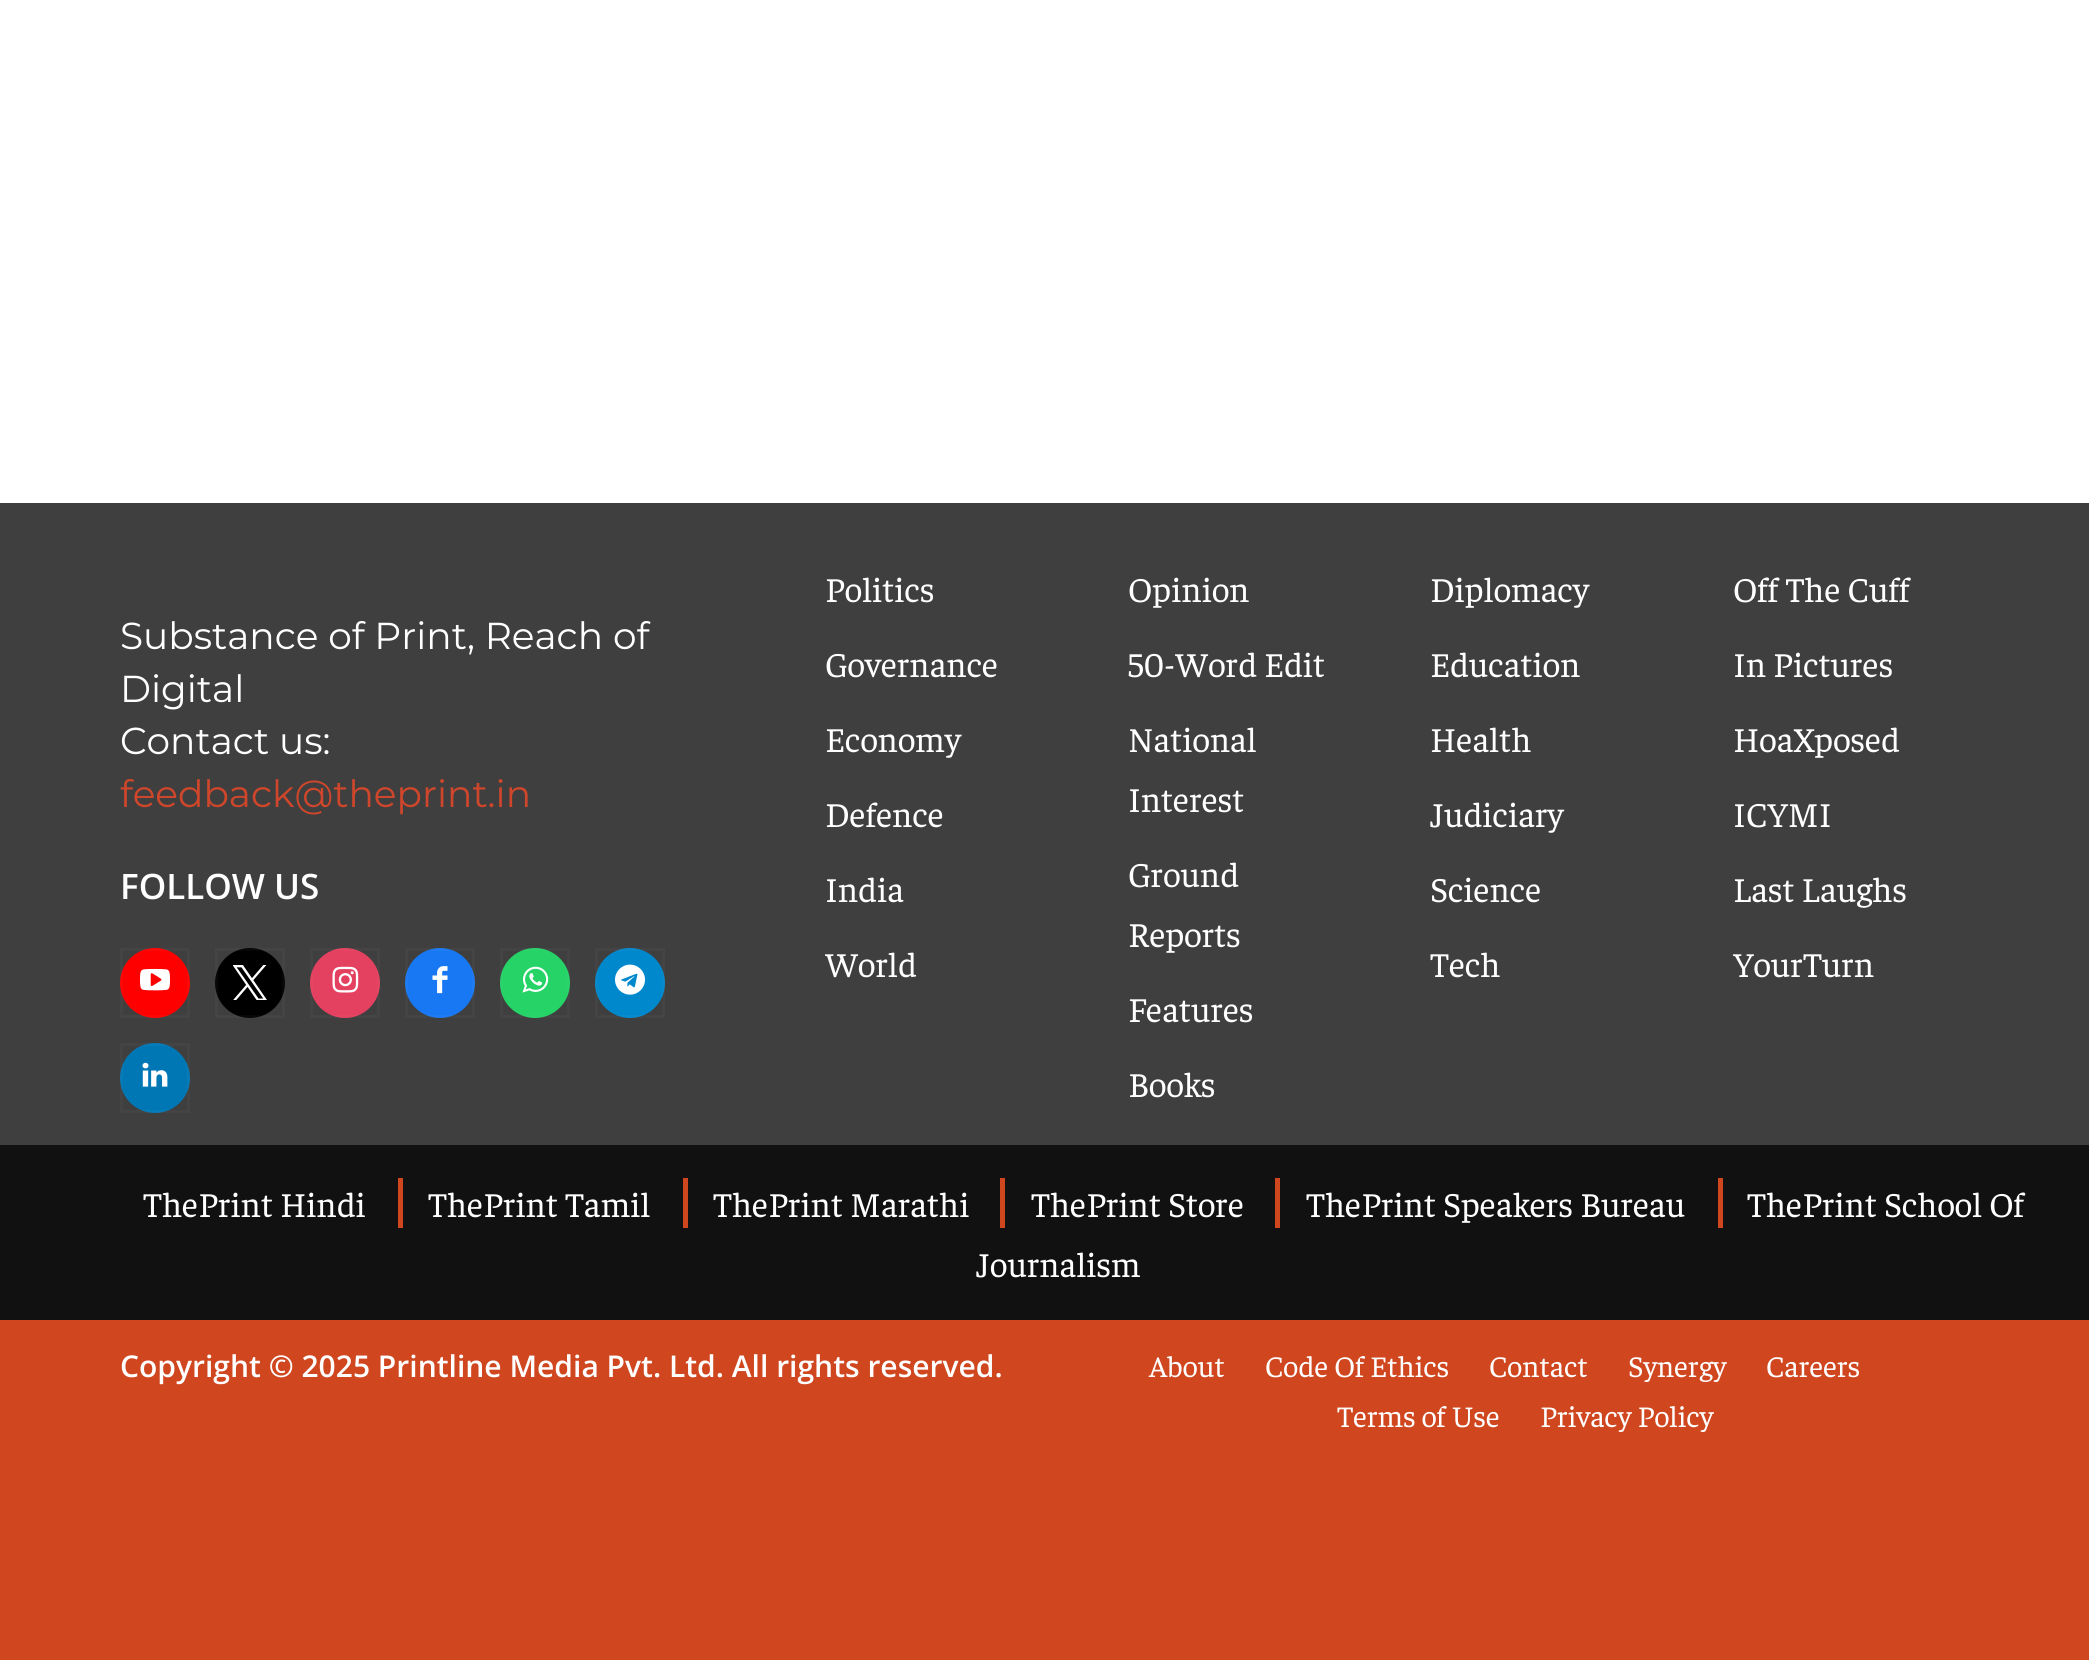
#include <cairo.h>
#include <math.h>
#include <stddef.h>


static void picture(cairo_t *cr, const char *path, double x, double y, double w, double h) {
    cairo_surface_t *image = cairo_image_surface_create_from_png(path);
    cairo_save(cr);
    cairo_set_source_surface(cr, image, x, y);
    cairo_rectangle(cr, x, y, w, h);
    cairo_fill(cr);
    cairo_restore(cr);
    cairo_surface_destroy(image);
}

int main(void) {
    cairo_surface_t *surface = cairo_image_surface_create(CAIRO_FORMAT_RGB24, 2089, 1660);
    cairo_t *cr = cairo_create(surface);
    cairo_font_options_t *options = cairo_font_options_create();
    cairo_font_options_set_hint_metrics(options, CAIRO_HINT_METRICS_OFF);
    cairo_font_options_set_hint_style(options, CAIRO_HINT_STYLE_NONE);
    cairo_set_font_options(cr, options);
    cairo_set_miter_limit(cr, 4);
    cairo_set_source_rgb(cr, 1, 1, 1);
    cairo_paint(cr);
    cairo_set_source_rgb(cr, 0.247, 0.247, 0.247);
    cairo_rectangle(cr, 0, 503, 2089, 642);
    cairo_fill(cr);
    cairo_select_font_face(cr, "Montserrat", CAIRO_FONT_SLANT_NORMAL, CAIRO_FONT_WEIGHT_NORMAL);
    cairo_set_font_size(cr, 37.5);
    cairo_set_source_rgb(cr, 1, 1, 1);
    cairo_move_to(cr, 120, 649);
    cairo_show_text(cr, "Substance of Print, Reach of");
    cairo_move_to(cr, 120, 702);
    cairo_show_text(cr, "Digital");
    cairo_move_to(cr, 120, 754);
    cairo_show_text(cr, "Contact us:");
    cairo_set_source_rgb(cr, 0.812, 0.275, 0.169);
    cairo_move_to(cr, 120, 807);
    cairo_show_text(cr, "feedback@theprint.in");
    cairo_select_font_face(cr, "Open Sans SemiBold", CAIRO_FONT_SLANT_NORMAL, CAIRO_FONT_WEIGHT_NORMAL);
    cairo_set_font_size(cr, 35);
    cairo_set_source_rgb(cr, 1, 1, 1);
    cairo_move_to(cr, 120, 899);
    cairo_show_text(cr, "FOLLOW US");
    cairo_set_source_rgb(cr, 1, 0, 0);
    cairo_new_path(cr);
    cairo_arc(cr, 155, 983, 35, 0, 2 * M_PI);
    cairo_fill(cr);
    cairo_rectangle(cr, 121.5, 949.5, 67, 67);
    cairo_set_source_rgba(cr, 1, 1, 1, 0.03);
    cairo_set_line_width(cr, 3);
    cairo_stroke(cr);
    picture(cr, "img1.png", 140, 968, 30, 23);
    cairo_set_source_rgb(cr, 0, 0, 0);
    cairo_arc(cr, 250, 983, 35, 0, 2 * M_PI);
    cairo_fill(cr);
    cairo_rectangle(cr, 216.5, 949.5, 67, 67);
    cairo_set_source_rgba(cr, 1, 1, 1, 0.03);
    cairo_stroke(cr);
    picture(cr, "img2.png", 233, 965, 34, 35);
    cairo_set_source_rgb(cr, 0.894, 0.251, 0.373);
    cairo_arc(cr, 345, 983, 35, 0, 2 * M_PI);
    cairo_fill(cr);
    cairo_rectangle(cr, 311.5, 949.5, 67, 67);
    cairo_set_source_rgba(cr, 1, 1, 1, 0.03);
    cairo_stroke(cr);
    picture(cr, "img3.png", 332, 966, 27, 27);
    cairo_set_source_rgb(cr, 0.094, 0.467, 0.949);
    cairo_arc(cr, 440, 983, 35, 0, 2 * M_PI);
    cairo_fill(cr);
    cairo_rectangle(cr, 406.5, 949.5, 67, 67);
    cairo_set_source_rgba(cr, 1, 1, 1, 0.03);
    cairo_stroke(cr);
    picture(cr, "img4.png", 432, 966, 16, 28);
    cairo_set_source_rgb(cr, 0.145, 0.827, 0.4);
    cairo_arc(cr, 535, 983, 35, 0, 2 * M_PI);
    cairo_fill(cr);
    cairo_rectangle(cr, 501.5, 949.5, 67, 67);
    cairo_set_source_rgba(cr, 1, 1, 1, 0.03);
    cairo_stroke(cr);
    picture(cr, "img5.png", 522, 966, 27, 27);
    cairo_set_source_rgb(cr, 0, 0.533, 0.8);
    cairo_arc(cr, 630, 983, 35, 0, 2 * M_PI);
    cairo_fill(cr);
    cairo_rectangle(cr, 596.5, 949.5, 67, 67);
    cairo_set_source_rgba(cr, 1, 1, 1, 0.03);
    cairo_stroke(cr);
    picture(cr, "img6.png", 615, 964, 30, 31);
    cairo_set_source_rgb(cr, 0, 0.467, 0.71);
    cairo_arc(cr, 155, 1078, 35, 0, 2 * M_PI);
    cairo_fill(cr);
    cairo_rectangle(cr, 121.5, 1044.5, 67, 67);
    cairo_set_source_rgba(cr, 1, 1, 1, 0.03);
    cairo_stroke(cr);
    picture(cr, "img7.png", 142, 1062, 26, 25);
    cairo_select_font_face(cr, "Faustina", CAIRO_FONT_SLANT_NORMAL, CAIRO_FONT_WEIGHT_NORMAL);
    cairo_set_source_rgb(cr, 1, 1, 1);
    cairo_move_to(cr, 825, 602);
    cairo_show_text(cr, "Politics");
    cairo_move_to(cr, 825, 677);
    cairo_show_text(cr, "Governance");
    cairo_move_to(cr, 825, 752);
    cairo_show_text(cr, "Economy");
    cairo_move_to(cr, 825, 827);
    cairo_show_text(cr, "Defence");
    cairo_move_to(cr, 825, 902);
    cairo_show_text(cr, "India");
    cairo_move_to(cr, 825, 977);
    cairo_show_text(cr, "World");
    cairo_move_to(cr, 1128, 602);
    cairo_show_text(cr, "Opinion");
    cairo_move_to(cr, 1128, 677);
    cairo_show_text(cr, "50-Word Edit");
    cairo_move_to(cr, 1128, 752);
    cairo_show_text(cr, "National");
    cairo_move_to(cr, 1128, 812);
    cairo_show_text(cr, "Interest");
    cairo_move_to(cr, 1128, 887);
    cairo_show_text(cr, "Ground");
    cairo_move_to(cr, 1128, 947);
    cairo_show_text(cr, "Reports");
    cairo_move_to(cr, 1128, 1022);
    cairo_show_text(cr, "Features");
    cairo_move_to(cr, 1128, 1097);
    cairo_show_text(cr, "Books");
    cairo_move_to(cr, 1430, 602);
    cairo_show_text(cr, "Diplomacy");
    cairo_move_to(cr, 1430, 677);
    cairo_show_text(cr, "Education");
    cairo_move_to(cr, 1430, 752);
    cairo_show_text(cr, "Health");
    cairo_move_to(cr, 1430, 827);
    cairo_show_text(cr, "Judiciary");
    cairo_move_to(cr, 1430, 902);
    cairo_show_text(cr, "Science");
    cairo_move_to(cr, 1430, 977);
    cairo_show_text(cr, "Tech");
    cairo_move_to(cr, 1733, 602);
    cairo_show_text(cr, "Off The Cuff");
    cairo_move_to(cr, 1733, 677);
    cairo_show_text(cr, "In Pictures");
    cairo_move_to(cr, 1733, 752);
    cairo_show_text(cr, "HoaXposed");
    cairo_move_to(cr, 1733, 827);
    cairo_show_text(cr, "ICYMI");
    cairo_move_to(cr, 1733, 902);
    cairo_show_text(cr, "Last Laughs");
    cairo_move_to(cr, 1733, 977);
    cairo_show_text(cr, "YourTurn");
    cairo_set_source_rgb(cr, 0.067, 0.067, 0.067);
    cairo_rectangle(cr, 0, 1145, 2089, 175);
    cairo_fill(cr);
    cairo_set_source_rgb(cr, 1, 1, 1);
    cairo_move_to(cr, 143, 1217);
    cairo_show_text(cr, "ThePrint Hindi");
    cairo_move_to(cr, 428, 1217);
    cairo_show_text(cr, "ThePrint Tamil");
    cairo_set_source_rgb(cr, 0.812, 0.275, 0.122);
    cairo_rectangle(cr, 398, 1178, 5, 50);
    cairo_fill(cr);
    cairo_set_source_rgb(cr, 1, 1, 1);
    cairo_move_to(cr, 713, 1217);
    cairo_show_text(cr, "ThePrint Marathi");
    cairo_set_source_rgb(cr, 0.812, 0.275, 0.122);
    cairo_rectangle(cr, 683, 1178, 5, 50);
    cairo_fill(cr);
    cairo_set_source_rgb(cr, 1, 1, 1);
    cairo_move_to(cr, 1031, 1217);
    cairo_show_text(cr, "ThePrint Store");
    cairo_set_source_rgb(cr, 0.812, 0.275, 0.122);
    cairo_rectangle(cr, 1000, 1178, 5, 50);
    cairo_fill(cr);
    cairo_set_source_rgb(cr, 1, 1, 1);
    cairo_move_to(cr, 1306, 1217);
    cairo_show_text(cr, "ThePrint Speakers Bureau");
    cairo_set_source_rgb(cr, 0.812, 0.275, 0.122);
    cairo_rectangle(cr, 1275, 1178, 5, 50);
    cairo_fill(cr);
    cairo_set_source_rgb(cr, 1, 1, 1);
    cairo_move_to(cr, 1747, 1217);
    cairo_show_text(cr, "ThePrint School Of");
    cairo_set_source_rgb(cr, 0.812, 0.275, 0.122);
    cairo_rectangle(cr, 1718, 1178, 5, 50);
    cairo_fill(cr);
    cairo_set_source_rgb(cr, 1, 1, 1);
    cairo_move_to(cr, 976, 1277);
    cairo_show_text(cr, "Journalism");
    cairo_set_source_rgb(cr, 0.812, 0.275, 0.122);
    cairo_rectangle(cr, 0, 1320, 2089, 340);
    cairo_fill(cr);
    cairo_select_font_face(cr, "Open Sans SemiBold", CAIRO_FONT_SLANT_NORMAL, CAIRO_FONT_WEIGHT_NORMAL);
    cairo_set_font_size(cr, 30);
    cairo_set_source_rgb(cr, 1, 1, 1);
    cairo_move_to(cr, 120, 1377);
    cairo_show_text(cr, "Copyright © 2025 Printline Media Pvt. Ltd. All rights reserved.");
    cairo_select_font_face(cr, "Faustina", CAIRO_FONT_SLANT_NORMAL, CAIRO_FONT_WEIGHT_NORMAL);
    cairo_move_to(cr, 1149, 1377);
    cairo_show_text(cr, "About");
    cairo_move_to(cr, 1265, 1377);
    cairo_show_text(cr, "Code Of Ethics");
    cairo_move_to(cr, 1489, 1377);
    cairo_show_text(cr, "Contact");
    cairo_move_to(cr, 1628, 1377);
    cairo_show_text(cr, "Synergy");
    cairo_move_to(cr, 1766, 1377);
    cairo_show_text(cr, "Careers");
    cairo_move_to(cr, 1337, 1427);
    cairo_show_text(cr, "Terms of Use");
    cairo_move_to(cr, 1540, 1427);
    cairo_show_text(cr, "Privacy Policy");
    cairo_surface_write_to_png(surface, "page.png");
    cairo_font_options_destroy(options);
    cairo_destroy(cr);
    cairo_surface_destroy(surface);
    return 0;
}
